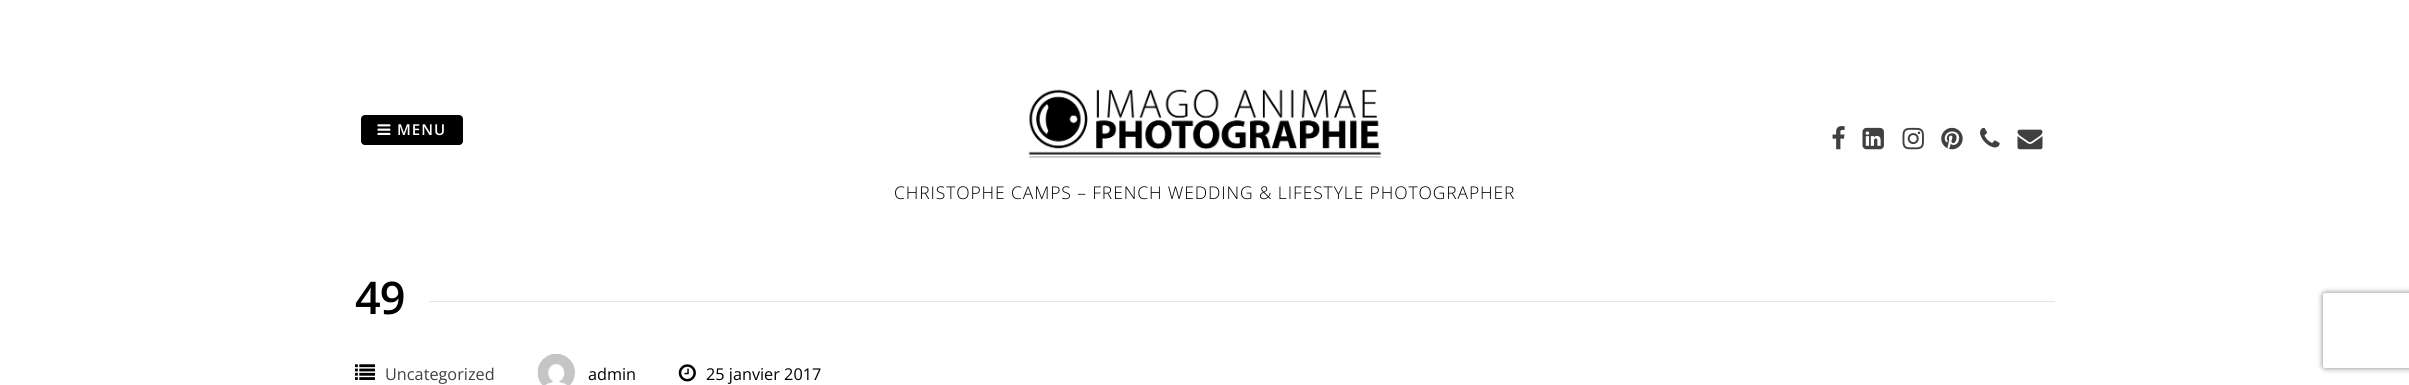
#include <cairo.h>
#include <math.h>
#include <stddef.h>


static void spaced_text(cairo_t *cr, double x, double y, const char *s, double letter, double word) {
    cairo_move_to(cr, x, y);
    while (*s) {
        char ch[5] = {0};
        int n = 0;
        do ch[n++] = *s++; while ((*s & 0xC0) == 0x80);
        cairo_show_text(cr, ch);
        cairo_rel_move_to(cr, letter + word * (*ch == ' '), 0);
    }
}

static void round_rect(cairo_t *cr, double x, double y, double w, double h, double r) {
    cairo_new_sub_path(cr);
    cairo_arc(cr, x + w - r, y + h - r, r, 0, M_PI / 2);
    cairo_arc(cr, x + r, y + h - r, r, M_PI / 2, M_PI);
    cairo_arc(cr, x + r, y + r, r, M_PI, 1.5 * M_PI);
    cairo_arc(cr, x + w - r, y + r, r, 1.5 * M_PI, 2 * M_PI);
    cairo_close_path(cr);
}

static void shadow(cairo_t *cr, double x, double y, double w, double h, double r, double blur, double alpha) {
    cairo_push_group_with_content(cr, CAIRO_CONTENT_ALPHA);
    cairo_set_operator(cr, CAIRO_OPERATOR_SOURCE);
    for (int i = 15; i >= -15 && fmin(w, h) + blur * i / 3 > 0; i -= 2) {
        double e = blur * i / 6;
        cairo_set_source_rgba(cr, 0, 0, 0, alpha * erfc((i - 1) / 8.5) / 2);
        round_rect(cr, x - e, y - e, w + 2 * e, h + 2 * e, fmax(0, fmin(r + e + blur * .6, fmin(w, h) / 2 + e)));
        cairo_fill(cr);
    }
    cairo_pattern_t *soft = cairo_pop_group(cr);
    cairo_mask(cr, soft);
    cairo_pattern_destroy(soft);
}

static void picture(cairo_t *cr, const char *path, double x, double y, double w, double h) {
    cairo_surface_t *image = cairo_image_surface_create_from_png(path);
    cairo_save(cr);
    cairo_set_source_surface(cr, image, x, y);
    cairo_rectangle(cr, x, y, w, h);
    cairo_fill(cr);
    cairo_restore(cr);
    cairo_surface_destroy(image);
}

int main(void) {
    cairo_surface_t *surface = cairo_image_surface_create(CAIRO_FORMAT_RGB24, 2409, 385);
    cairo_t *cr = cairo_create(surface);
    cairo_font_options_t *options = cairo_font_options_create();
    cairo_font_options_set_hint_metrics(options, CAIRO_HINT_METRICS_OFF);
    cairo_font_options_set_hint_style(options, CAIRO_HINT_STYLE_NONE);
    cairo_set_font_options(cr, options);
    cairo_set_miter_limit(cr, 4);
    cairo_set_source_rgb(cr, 1, 1, 1);
    cairo_paint(cr);
    cairo_set_source_rgb(cr, 0, 0, 0);
    round_rect(cr, 361.5, 115.5, 101, 29, 3.5);
    cairo_fill_preserve(cr);
    cairo_set_line_width(cr, 1);
    cairo_stroke(cr);
    picture(cr, "img1.png", 377, 124, 14, 11);
    cairo_select_font_face(cr, "Open Sans SemiBold", CAIRO_FONT_SLANT_NORMAL, CAIRO_FONT_WEIGHT_NORMAL);
    cairo_set_font_size(cr, 15);
    cairo_set_source_rgb(cr, 1, 1, 1);
    spaced_text(cr, 397, 135, "MENU", 1, 0);
    picture(cr, "img2.png", 1832, 126, 13, 24);
    picture(cr, "img3.png", 1862, 127, 22, 23);
    picture(cr, "img4.png", 1902, 127, 22, 23);
    picture(cr, "img5.png", 1941, 127, 22, 23);
    picture(cr, "img6.png", 1980, 127, 20, 21);
    picture(cr, "img7.png", 2017, 129, 26, 21);
    picture(cr, "img8.png", 1028, 89, 354, 69);
    cairo_select_font_face(cr, "Open Sans Light", CAIRO_FONT_SLANT_NORMAL, CAIRO_FONT_WEIGHT_NORMAL);
    cairo_set_font_size(cr, 17.5);
    cairo_set_source_rgb(cr, 0, 0, 0);
    spaced_text(cr, 894, 199, "CHRISTOPHE CAMPS – FRENCH WEDDING & LIFESTYLE PHOTOGRAPHER", 0.88, 0);
    cairo_select_font_face(cr, "Open Sans SemiBold", CAIRO_FONT_SLANT_NORMAL, CAIRO_FONT_WEIGHT_NORMAL);
    cairo_set_font_size(cr, 45);
    spaced_text(cr, 355, 314, "49", -1, 0);
    cairo_set_source_rgb(cr, 0.898, 0.898, 0.898);
    cairo_rectangle(cr, 429, 301, 1626, 1);
    cairo_fill(cr);
    picture(cr, "img9.png", 355, 364, 20, 16);
    cairo_select_font_face(cr, "Open Sans", CAIRO_FONT_SLANT_NORMAL, CAIRO_FONT_WEIGHT_NORMAL);
    cairo_set_font_size(cr, 16.25);
    cairo_set_source_rgb(cr, 0.251, 0.251, 0.251);
    cairo_move_to(cr, 385, 380);
    cairo_show_text(cr, "Uncategorized");
    picture(cr, "img10.png", 537, 354, 38, 31);
    cairo_set_source_rgb(cr, 0, 0, 0);
    cairo_move_to(cr, 588, 380);
    cairo_show_text(cr, "admin");
    picture(cr, "img11.png", 678, 364, 18, 18);
    cairo_move_to(cr, 706, 380);
    cairo_show_text(cr, "25 janvier 2017");
    cairo_save(cr);
    cairo_set_fill_rule(cr, CAIRO_FILL_RULE_EVEN_ODD);
    cairo_new_path(cr);
    cairo_move_to(cr, 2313, 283);
    cairo_line_to(cr, 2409, 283);
    cairo_line_to(cr, 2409, 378);
    cairo_line_to(cr, 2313, 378);
    cairo_close_path(cr);
    cairo_move_to(cr, 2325.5, 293);
    cairo_line_to(cr, 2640.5, 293);
    cairo_curve_to(cr, 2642, 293, 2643, 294, 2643, 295.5);
    cairo_line_to(cr, 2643, 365.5);
    cairo_curve_to(cr, 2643, 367, 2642, 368, 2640.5, 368);
    cairo_line_to(cr, 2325.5, 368);
    cairo_curve_to(cr, 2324, 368, 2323, 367, 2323, 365.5);
    cairo_line_to(cr, 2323, 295.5);
    cairo_curve_to(cr, 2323, 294, 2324, 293, 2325.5, 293);
    cairo_close_path(cr);
    cairo_clip(cr);
    cairo_set_source_rgb(cr, 0.502, 0.502, 0.502);
    shadow(cr, 2323, 293, 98, 75, 2.5, 3, 1);
    cairo_restore(cr);
    cairo_surface_write_to_png(surface, "page.png");
    cairo_font_options_destroy(options);
    cairo_destroy(cr);
    cairo_surface_destroy(surface);
    return 0;
}
